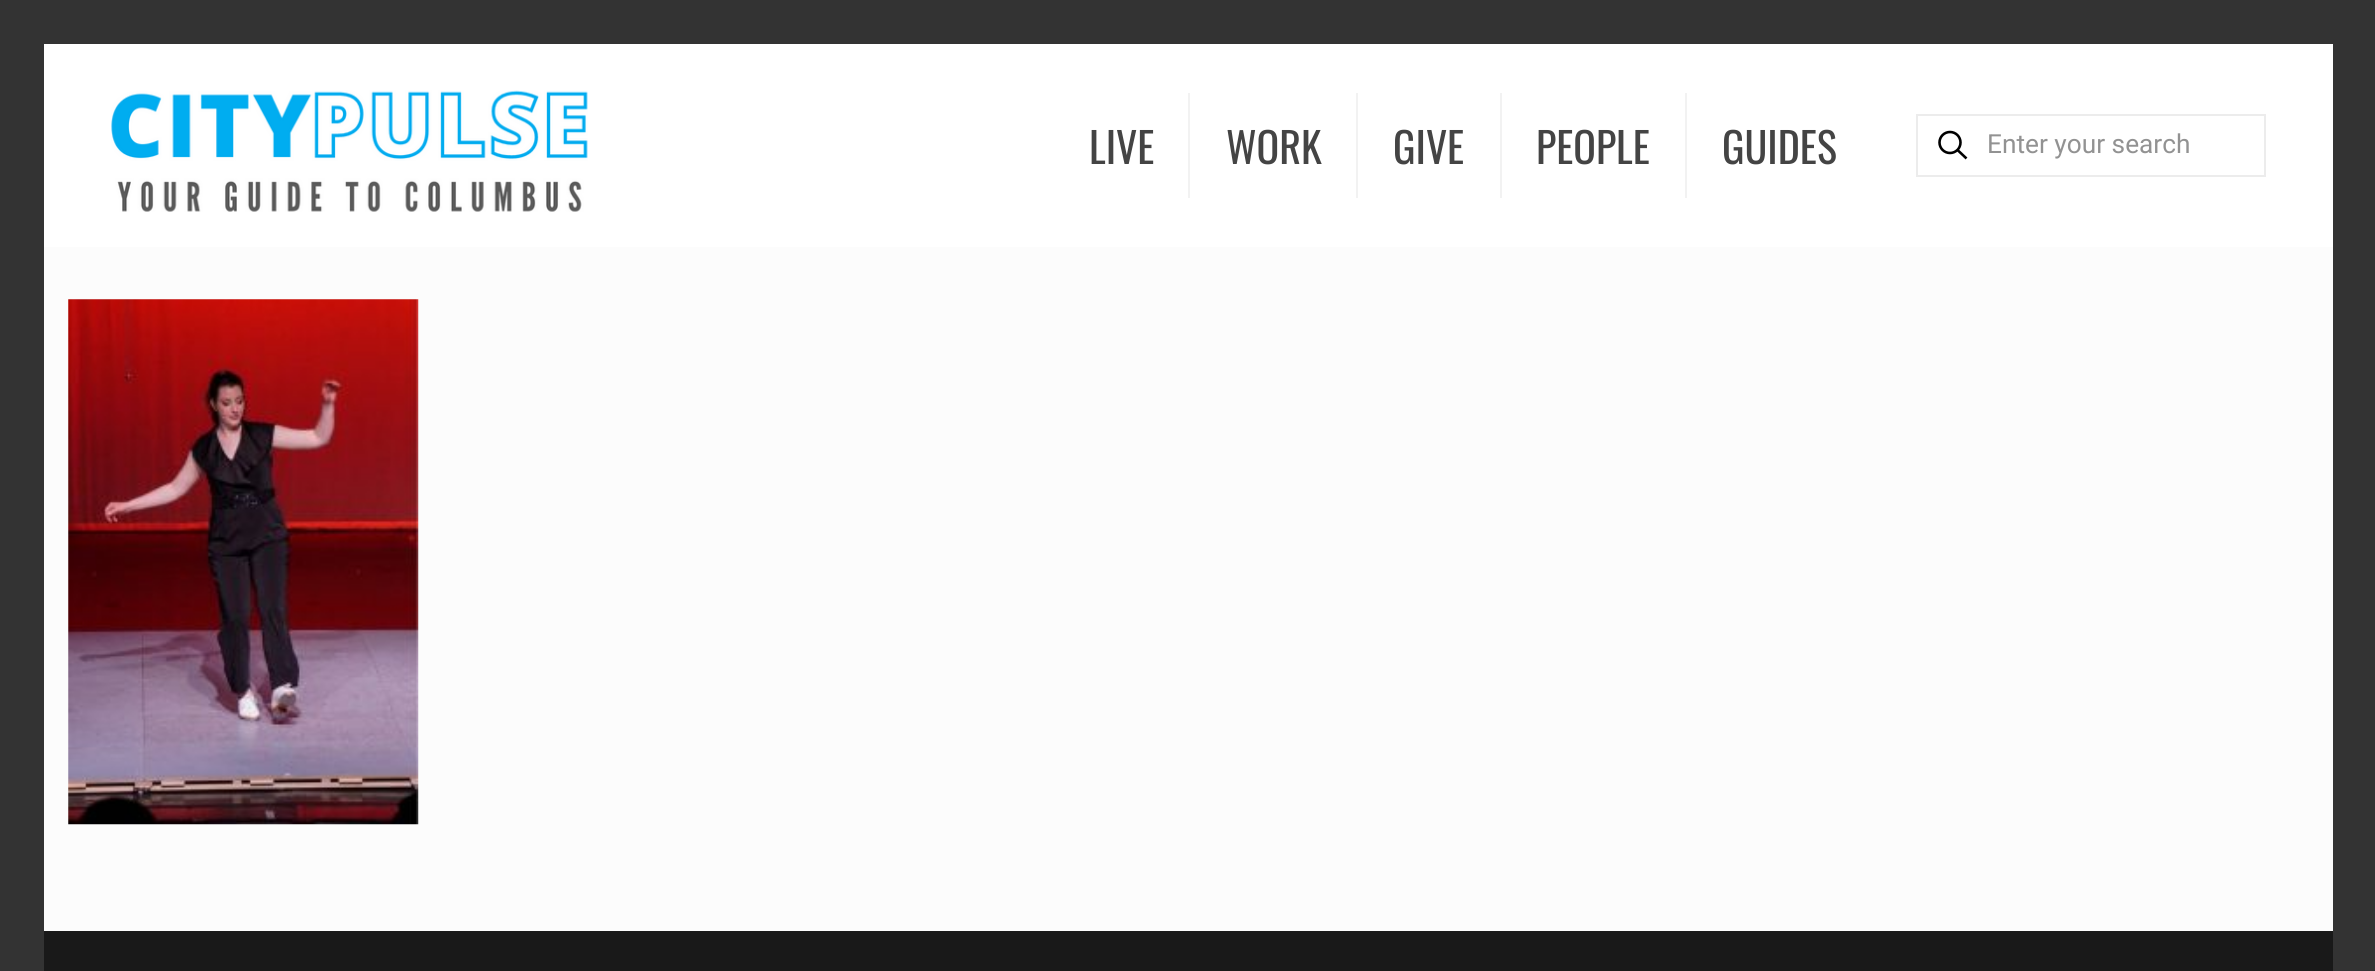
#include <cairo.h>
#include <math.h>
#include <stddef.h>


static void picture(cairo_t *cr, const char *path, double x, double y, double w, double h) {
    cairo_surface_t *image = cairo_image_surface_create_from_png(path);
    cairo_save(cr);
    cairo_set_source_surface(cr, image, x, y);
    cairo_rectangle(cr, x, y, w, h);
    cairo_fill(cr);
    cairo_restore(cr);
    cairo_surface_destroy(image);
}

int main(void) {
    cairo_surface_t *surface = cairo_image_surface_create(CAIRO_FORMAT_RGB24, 2375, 971);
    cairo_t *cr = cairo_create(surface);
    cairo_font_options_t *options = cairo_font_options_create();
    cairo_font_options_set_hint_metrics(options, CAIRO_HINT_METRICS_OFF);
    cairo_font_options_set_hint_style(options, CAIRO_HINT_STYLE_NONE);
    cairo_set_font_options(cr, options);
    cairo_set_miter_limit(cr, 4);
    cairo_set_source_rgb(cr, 0.2, 0.2, 0.2);
    cairo_paint(cr);
    cairo_set_source_rgb(cr, 0.988, 0.988, 0.988);
    cairo_rectangle(cr, 44, 247, 2289, 684);
    cairo_fill(cr);
    cairo_set_source_rgb(cr, 1, 1, 1);
    cairo_rectangle(cr, 44, 44, 2289, 203);
    cairo_fill(cr);
    picture(cr, "img1.png", 111, 90, 477, 122);
    cairo_set_source_rgb(cr, 0.949, 0.949, 0.949);
    cairo_rectangle(cr, 1188, 93, 2, 105);
    cairo_fill(cr);
    cairo_select_font_face(cr, "Oswald", CAIRO_FONT_SLANT_NORMAL, CAIRO_FONT_WEIGHT_NORMAL);
    cairo_set_font_size(cr, 42);
    cairo_set_source_rgb(cr, 0.267, 0.267, 0.267);
    cairo_move_to(cr, 1089, 164);
    cairo_show_text(cr, "LIVE");
    cairo_set_source_rgb(cr, 0.949, 0.949, 0.949);
    cairo_rectangle(cr, 1356, 93, 2, 105);
    cairo_fill(cr);
    cairo_set_source_rgb(cr, 0.267, 0.267, 0.267);
    cairo_move_to(cr, 1226, 164);
    cairo_show_text(cr, "WORK");
    cairo_set_source_rgb(cr, 0.949, 0.949, 0.949);
    cairo_rectangle(cr, 1500, 93, 2, 105);
    cairo_fill(cr);
    cairo_set_source_rgb(cr, 0.267, 0.267, 0.267);
    cairo_move_to(cr, 1393, 164);
    cairo_show_text(cr, "GIVE");
    cairo_set_source_rgb(cr, 0.949, 0.949, 0.949);
    cairo_rectangle(cr, 1685, 93, 2, 105);
    cairo_fill(cr);
    cairo_set_source_rgb(cr, 0.267, 0.267, 0.267);
    cairo_move_to(cr, 1536, 164);
    cairo_show_text(cr, "PEOPLE");
    cairo_move_to(cr, 1722, 164);
    cairo_show_text(cr, "GUIDES");
    cairo_rectangle(cr, 1917, 115, 348, 61);
    cairo_set_source_rgb(cr, 0.922, 0.922, 0.922);
    cairo_stroke(cr);
    cairo_arc(cr, 1950, 142.5, 10.5, 0, 2 * M_PI);
    cairo_set_source_rgb(cr, 0, 0, 0);
    cairo_set_line_width(cr, 2.6);
    cairo_stroke(cr);
    cairo_new_path(cr);
    cairo_move_to(cr, 1957.5, 150);
    cairo_line_to(cr, 1966.5, 158.5);
    cairo_stroke(cr);
    cairo_select_font_face(cr, "Roboto", CAIRO_FONT_SLANT_NORMAL, CAIRO_FONT_WEIGHT_NORMAL);
    cairo_set_font_size(cr, 26.25);
    cairo_set_source_rgb(cr, 0.573, 0.573, 0.573);
    cairo_move_to(cr, 1987, 153);
    cairo_show_text(cr, "Enter your search");
    picture(cr, "img2.png", 68, 299, 351, 526);
    cairo_set_source_rgb(cr, 0.098, 0.098, 0.098);
    cairo_rectangle(cr, 44, 931, 2289, 40);
    cairo_fill(cr);
    cairo_surface_write_to_png(surface, "page.png");
    cairo_font_options_destroy(options);
    cairo_destroy(cr);
    cairo_surface_destroy(surface);
    return 0;
}
